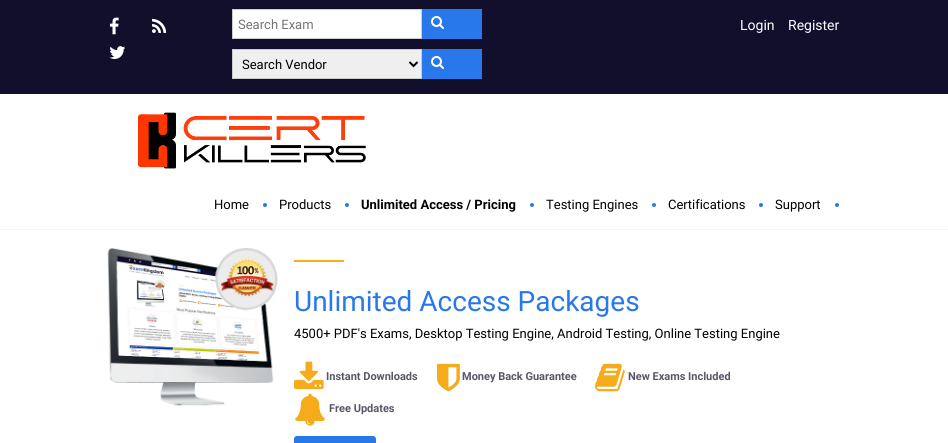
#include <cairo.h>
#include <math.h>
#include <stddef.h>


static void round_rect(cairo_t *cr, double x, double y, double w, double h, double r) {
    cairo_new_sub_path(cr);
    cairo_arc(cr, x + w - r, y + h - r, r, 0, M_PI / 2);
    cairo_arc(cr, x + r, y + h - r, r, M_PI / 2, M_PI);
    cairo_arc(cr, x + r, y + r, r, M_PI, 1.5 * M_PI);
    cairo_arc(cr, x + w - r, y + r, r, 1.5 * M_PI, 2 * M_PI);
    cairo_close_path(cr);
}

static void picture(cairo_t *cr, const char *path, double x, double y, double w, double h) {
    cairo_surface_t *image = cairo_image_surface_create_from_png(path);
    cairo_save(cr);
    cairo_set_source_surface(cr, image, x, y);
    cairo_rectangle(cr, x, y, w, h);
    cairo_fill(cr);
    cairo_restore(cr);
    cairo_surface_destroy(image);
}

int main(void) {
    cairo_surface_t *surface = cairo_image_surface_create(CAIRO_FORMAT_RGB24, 948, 443);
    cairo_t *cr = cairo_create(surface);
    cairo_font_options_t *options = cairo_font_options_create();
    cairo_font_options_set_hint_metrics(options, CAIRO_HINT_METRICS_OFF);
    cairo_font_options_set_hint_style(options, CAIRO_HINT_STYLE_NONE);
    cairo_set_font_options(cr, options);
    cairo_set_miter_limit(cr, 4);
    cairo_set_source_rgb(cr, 1, 1, 1);
    cairo_paint(cr);
    cairo_set_source_rgb(cr, 0.071, 0.059, 0.176);
    cairo_rectangle(cr, 0, 0, 948, 94);
    cairo_fill(cr);
    picture(cr, "img1.png", 109, 17, 10, 18);
    picture(cr, "img2.png", 152, 18, 15, 15);
    picture(cr, "img3.png", 109, 46, 17, 13);
    cairo_set_source_rgb(cr, 1, 1, 1);
    cairo_rectangle(cr, 232.5, 9.5, 189, 29);
    cairo_fill_preserve(cr);
    cairo_set_source_rgb(cr, 0.8, 0.8, 0.8);
    cairo_set_line_width(cr, 1);
    cairo_stroke(cr);
    cairo_select_font_face(cr, "Roboto", CAIRO_FONT_SLANT_NORMAL, CAIRO_FONT_WEIGHT_NORMAL);
    cairo_set_font_size(cr, 13);
    cairo_set_source_rgb(cr, 0.459, 0.459, 0.459);
    cairo_move_to(cr, 238, 29);
    cairo_show_text(cr, "Search Exam");
    cairo_set_source_rgb(cr, 0.157, 0.471, 0.922);
    cairo_rectangle(cr, 422, 9, 60, 30);
    cairo_fill(cr);
    picture(cr, "img4.png", 431, 16, 13, 13);
    cairo_set_source_rgb(cr, 0.937, 0.937, 0.937);
    cairo_rectangle(cr, 232.5, 49.5, 189, 29);
    cairo_fill_preserve(cr);
    cairo_set_source_rgb(cr, 0.8, 0.8, 0.8);
    cairo_stroke(cr);
    cairo_new_path(cr);
    cairo_move_to(cr, 409.5, 62);
    cairo_line_to(cr, 413.5, 66);
    cairo_line_to(cr, 417.5, 62);
    cairo_set_source_rgb(cr, 0, 0, 0);
    cairo_set_line_width(cr, 2);
    cairo_stroke(cr);
    cairo_move_to(cr, 242, 69);
    cairo_show_text(cr, "Search Vendor");
    cairo_set_source_rgb(cr, 0.157, 0.471, 0.922);
    cairo_rectangle(cr, 422, 49, 60, 30);
    cairo_fill(cr);
    picture(cr, "img4.png", 431, 56, 13, 13);
    cairo_set_font_size(cr, 14);
    cairo_set_source_rgb(cr, 1, 1, 1);
    cairo_move_to(cr, 740, 30);
    cairo_show_text(cr, "Login");
    cairo_move_to(cr, 788, 30);
    cairo_show_text(cr, "Register");
    cairo_set_source_rgb(cr, 0.953, 0.953, 0.953);
    cairo_rectangle(cr, 0, 229, 948, 1);
    cairo_fill(cr);
    picture(cr, "img5.png", 138, 112, 228, 57);
    cairo_set_font_size(cr, 13);
    cairo_set_source_rgb(cr, 0, 0, 0);
    cairo_move_to(cr, 214, 209);
    cairo_show_text(cr, "Home");
    cairo_set_source_rgb(cr, 0.157, 0.471, 0.922);
    cairo_new_path(cr);
    cairo_arc(cr, 265, 205, 2, 0, 2 * M_PI);
    cairo_fill(cr);
    cairo_set_source_rgb(cr, 0, 0, 0);
    cairo_move_to(cr, 279, 209);
    cairo_show_text(cr, "Products");
    cairo_set_source_rgb(cr, 0.157, 0.471, 0.922);
    cairo_new_path(cr);
    cairo_arc(cr, 347, 205, 2, 0, 2 * M_PI);
    cairo_fill(cr);
    cairo_select_font_face(cr, "Roboto", CAIRO_FONT_SLANT_NORMAL, CAIRO_FONT_WEIGHT_BOLD);
    cairo_set_source_rgb(cr, 0, 0, 0);
    cairo_move_to(cr, 361, 209);
    cairo_show_text(cr, "Unlimited Access / Pricing");
    cairo_set_source_rgb(cr, 0.157, 0.471, 0.922);
    cairo_new_path(cr);
    cairo_arc(cr, 532, 205, 2, 0, 2 * M_PI);
    cairo_fill(cr);
    cairo_select_font_face(cr, "Roboto", CAIRO_FONT_SLANT_NORMAL, CAIRO_FONT_WEIGHT_NORMAL);
    cairo_set_source_rgb(cr, 0, 0, 0);
    cairo_move_to(cr, 546, 209);
    cairo_show_text(cr, "Testing Engines");
    cairo_set_source_rgb(cr, 0.157, 0.471, 0.922);
    cairo_new_path(cr);
    cairo_arc(cr, 654, 205, 2, 0, 2 * M_PI);
    cairo_fill(cr);
    cairo_set_source_rgb(cr, 0, 0, 0);
    cairo_move_to(cr, 668, 209);
    cairo_show_text(cr, "Certifications");
    cairo_set_source_rgb(cr, 0.157, 0.471, 0.922);
    cairo_new_path(cr);
    cairo_arc(cr, 761, 205, 2, 0, 2 * M_PI);
    cairo_fill(cr);
    cairo_set_source_rgb(cr, 0, 0, 0);
    cairo_move_to(cr, 775, 209);
    cairo_show_text(cr, "Support");
    cairo_set_source_rgb(cr, 0.157, 0.471, 0.922);
    cairo_new_path(cr);
    cairo_arc(cr, 837, 205, 2, 0, 2 * M_PI);
    cairo_fill(cr);
    picture(cr, "img6.png", 107, 247, 171, 159);
    cairo_set_source_rgb(cr, 0.965, 0.675, 0.102);
    cairo_rectangle(cr, 294, 260, 50, 2);
    cairo_fill(cr);
    cairo_set_font_size(cr, 28);
    cairo_set_source_rgb(cr, 0.157, 0.471, 0.922);
    cairo_move_to(cr, 294, 311);
    cairo_show_text(cr, "Unlimited Access Packages");
    cairo_set_font_size(cr, 13);
    cairo_set_source_rgb(cr, 0, 0, 0);
    cairo_move_to(cr, 294, 338);
    cairo_show_text(cr, "4500+ PDF's Exams, Desktop Testing Engine, Android Testing, Online Testing Engine");
    picture(cr, "img7.png", 294, 361, 30, 28);
    cairo_select_font_face(cr, "Roboto", CAIRO_FONT_SLANT_NORMAL, CAIRO_FONT_WEIGHT_BOLD);
    cairo_set_font_size(cr, 11);
    cairo_set_source_rgb(cr, 0.345, 0.337, 0.42);
    cairo_move_to(cr, 326, 380);
    cairo_show_text(cr, "Instant Downloads");
    picture(cr, "img8.png", 437, 363, 23, 29);
    cairo_move_to(cr, 462, 380);
    cairo_show_text(cr, "Money Back Guarantee");
    picture(cr, "img9.png", 595, 363, 30, 29);
    cairo_move_to(cr, 628, 380);
    cairo_show_text(cr, "New Exams Included");
    picture(cr, "img10.png", 295, 393, 30, 33);
    cairo_move_to(cr, 329, 412);
    cairo_show_text(cr, "Free Updates");
    cairo_set_source_rgb(cr, 0.157, 0.471, 0.922);
    round_rect(cr, 294, 436, 82, 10, 3);
    cairo_fill(cr);
    cairo_surface_write_to_png(surface, "page.png");
    cairo_font_options_destroy(options);
    cairo_destroy(cr);
    cairo_surface_destroy(surface);
    return 0;
}
